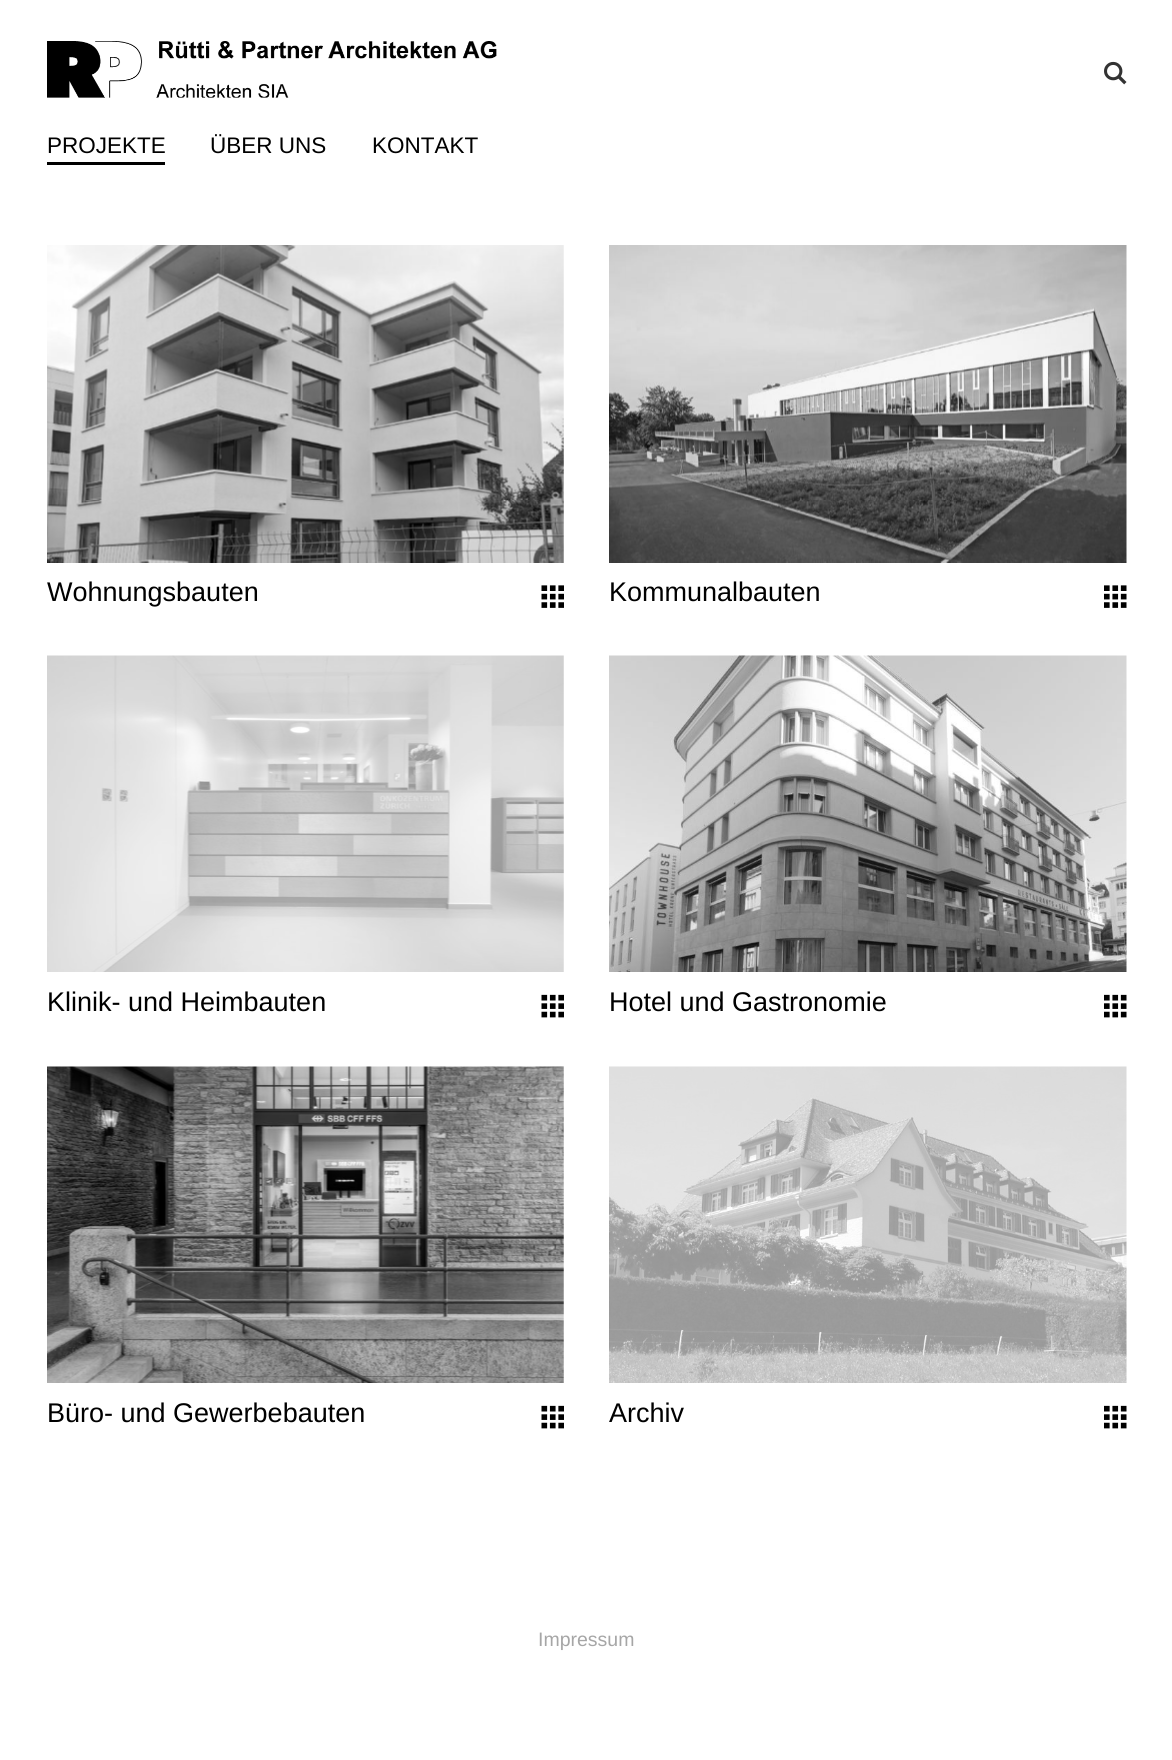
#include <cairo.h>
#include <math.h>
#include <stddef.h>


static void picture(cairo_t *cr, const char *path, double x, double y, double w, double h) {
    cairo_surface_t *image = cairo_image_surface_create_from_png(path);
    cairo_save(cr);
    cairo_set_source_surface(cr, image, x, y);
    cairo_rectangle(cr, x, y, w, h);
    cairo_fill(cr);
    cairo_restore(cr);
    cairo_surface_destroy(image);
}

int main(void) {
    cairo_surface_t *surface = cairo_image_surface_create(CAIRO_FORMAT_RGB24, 1172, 1760);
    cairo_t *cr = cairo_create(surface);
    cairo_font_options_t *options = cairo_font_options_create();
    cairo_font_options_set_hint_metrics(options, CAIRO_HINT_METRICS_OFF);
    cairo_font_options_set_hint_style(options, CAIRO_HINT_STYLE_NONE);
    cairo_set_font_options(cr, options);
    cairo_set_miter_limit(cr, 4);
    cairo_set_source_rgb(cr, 1, 1, 1);
    cairo_paint(cr);
    picture(cr, "img1.png", 47, 41, 450, 57);
    picture(cr, "img2.png", 1104, 61, 23, 24);
    cairo_set_source_rgb(cr, 0, 0, 0);
    cairo_rectangle(cr, 47, 162, 118, 3);
    cairo_fill(cr);
    cairo_select_font_face(cr, "Liberation Sans", CAIRO_FONT_SLANT_NORMAL, CAIRO_FONT_WEIGHT_NORMAL);
    cairo_set_font_size(cr, 22.5);
    cairo_move_to(cr, 47, 153);
    cairo_show_text(cr, "PROJEKTE");
    cairo_move_to(cr, 210, 153);
    cairo_show_text(cr, "ÜBER UNS");
    cairo_move_to(cr, 372, 153);
    cairo_show_text(cr, "KONTAKT");
    picture(cr, "img3.png", 47, 245, 517, 318);
    cairo_set_font_size(cr, 27);
    cairo_move_to(cr, 47, 601);
    cairo_show_text(cr, "Wohnungsbauten");
    picture(cr, "img4.png", 541, 585, 23, 23);
    picture(cr, "img5.png", 609, 245, 518, 318);
    cairo_move_to(cr, 609, 601);
    cairo_show_text(cr, "Kommunalbauten");
    picture(cr, "img6.png", 1104, 585, 23, 23);
    picture(cr, "img7.png", 47, 655, 517, 317);
    cairo_move_to(cr, 47, 1011);
    cairo_show_text(cr, "Klinik- und Heimbauten");
    picture(cr, "img8.png", 541, 994, 23, 24);
    picture(cr, "img9.png", 609, 655, 518, 317);
    cairo_move_to(cr, 609, 1011);
    cairo_show_text(cr, "Hotel und Gastronomie");
    picture(cr, "img10.png", 1104, 994, 23, 24);
    picture(cr, "img11.png", 47, 1066, 517, 317);
    cairo_move_to(cr, 47, 1422);
    cairo_show_text(cr, "Büro- und Gewerbebauten");
    picture(cr, "img8.png", 541, 1405, 23, 24);
    picture(cr, "img12.png", 609, 1066, 518, 317);
    cairo_move_to(cr, 609, 1422);
    cairo_show_text(cr, "Archiv");
    picture(cr, "img10.png", 1104, 1405, 23, 24);
    cairo_set_font_size(cr, 19.5);
    cairo_set_source_rgb(cr, 0.651, 0.651, 0.651);
    cairo_move_to(cr, 538, 1646);
    cairo_show_text(cr, "Impressum");
    cairo_surface_write_to_png(surface, "page.png");
    cairo_font_options_destroy(options);
    cairo_destroy(cr);
    cairo_surface_destroy(surface);
    return 0;
}
